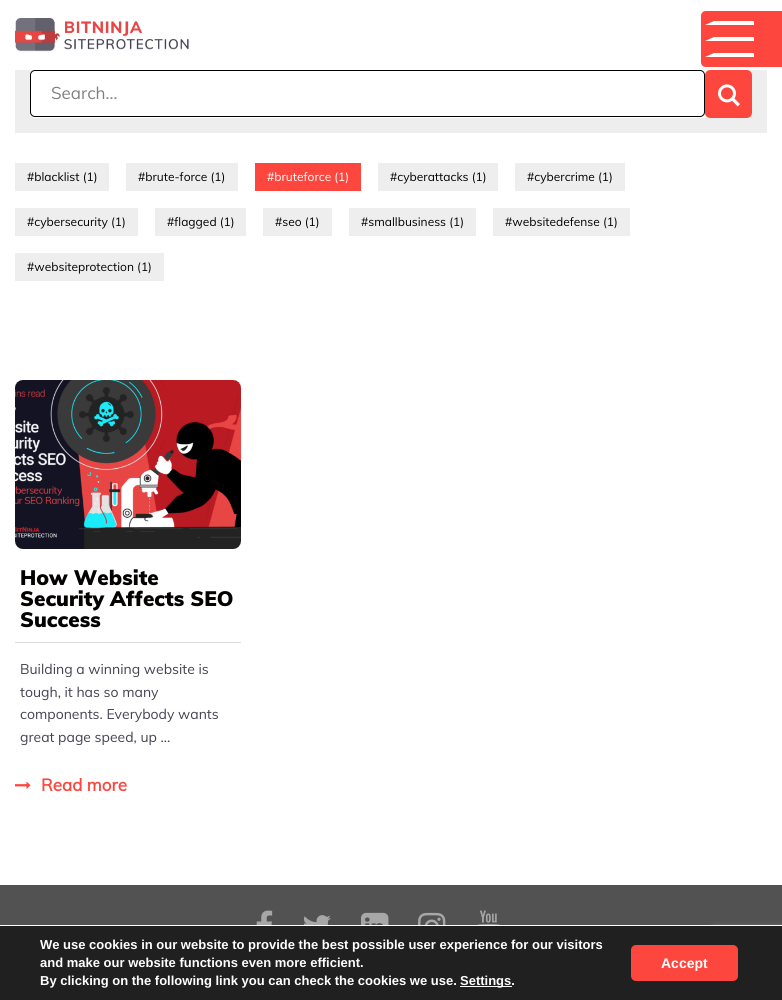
#include <cairo.h>
#include <math.h>
#include <stddef.h>


static void round_rect(cairo_t *cr, double x, double y, double w, double h, double r) {
    cairo_new_sub_path(cr);
    cairo_arc(cr, x + w - r, y + h - r, r, 0, M_PI / 2);
    cairo_arc(cr, x + r, y + h - r, r, M_PI / 2, M_PI);
    cairo_arc(cr, x + r, y + r, r, M_PI, 1.5 * M_PI);
    cairo_arc(cr, x + w - r, y + r, r, 1.5 * M_PI, 2 * M_PI);
    cairo_close_path(cr);
}

static void shadow(cairo_t *cr, double x, double y, double w, double h, double r, double blur, double alpha) {
    cairo_push_group_with_content(cr, CAIRO_CONTENT_ALPHA);
    cairo_set_operator(cr, CAIRO_OPERATOR_SOURCE);
    for (int i = 15; i >= -15 && fmin(w, h) + blur * i / 3 > 0; i -= 2) {
        double e = blur * i / 6;
        cairo_set_source_rgba(cr, 0, 0, 0, alpha * erfc((i - 1) / 8.5) / 2);
        round_rect(cr, x - e, y - e, w + 2 * e, h + 2 * e, fmax(0, fmin(r + e + blur * .6, fmin(w, h) / 2 + e)));
        cairo_fill(cr);
    }
    cairo_pattern_t *soft = cairo_pop_group(cr);
    cairo_mask(cr, soft);
    cairo_pattern_destroy(soft);
}

static void picture(cairo_t *cr, const char *path, double x, double y, double w, double h) {
    cairo_surface_t *image = cairo_image_surface_create_from_png(path);
    cairo_save(cr);
    cairo_set_source_surface(cr, image, x, y);
    cairo_rectangle(cr, x, y, w, h);
    cairo_fill(cr);
    cairo_restore(cr);
    cairo_surface_destroy(image);
}

int main(void) {
    cairo_surface_t *surface = cairo_image_surface_create(CAIRO_FORMAT_RGB24, 782, 1000);
    cairo_t *cr = cairo_create(surface);
    cairo_font_options_t *options = cairo_font_options_create();
    cairo_font_options_set_hint_metrics(options, CAIRO_HINT_METRICS_OFF);
    cairo_font_options_set_hint_style(options, CAIRO_HINT_STYLE_NONE);
    cairo_set_font_options(cr, options);
    cairo_set_miter_limit(cr, 4);
    cairo_set_source_rgb(cr, 1, 1, 1);
    cairo_paint(cr);
    picture(cr, "img1.png", 15, 18, 174, 34);
    cairo_set_source_rgb(cr, 0.992, 0.275, 0.239);
    cairo_new_path(cr);
    cairo_move_to(cr, 706, 11);
    cairo_line_to(cr, 757, 11);
    cairo_line_to(cr, 757, 67);
    cairo_line_to(cr, 706, 67);
    cairo_curve_to(cr, 703, 67, 701, 65, 701, 62);
    cairo_line_to(cr, 701, 16);
    cairo_curve_to(cr, 701, 13, 703, 11, 706, 11);
    cairo_close_path(cr);
    cairo_fill(cr);
    cairo_set_source_rgb(cr, 1, 1, 1);
    cairo_new_path(cr);
    cairo_move_to(cr, 714, 21);
    cairo_line_to(cr, 753, 21);
    cairo_line_to(cr, 744, 25);
    cairo_line_to(cr, 705, 25);
    cairo_close_path(cr);
    cairo_fill(cr);
    cairo_rectangle(cr, 744, 21, 10, 4);
    cairo_fill(cr);
    cairo_set_source_rgb(cr, 0.992, 0.275, 0.239);
    cairo_rectangle(cr, 757, 11, 25, 56);
    cairo_fill(cr);
    cairo_set_source_rgb(cr, 1, 1, 1);
    cairo_new_path(cr);
    cairo_move_to(cr, 714, 37);
    cairo_line_to(cr, 753, 37);
    cairo_line_to(cr, 744, 41);
    cairo_line_to(cr, 705, 41);
    cairo_close_path(cr);
    cairo_fill(cr);
    cairo_rectangle(cr, 744, 37, 10, 4);
    cairo_fill(cr);
    cairo_new_path(cr);
    cairo_move_to(cr, 714, 53);
    cairo_line_to(cr, 753, 53);
    cairo_line_to(cr, 744, 57);
    cairo_line_to(cr, 705, 57);
    cairo_close_path(cr);
    cairo_fill(cr);
    cairo_rectangle(cr, 744, 53, 10, 4);
    cairo_fill(cr);
    cairo_set_source_rgb(cr, 0.933, 0.933, 0.933);
    cairo_rectangle(cr, 15, 70, 752, 63);
    cairo_fill(cr);
    cairo_set_source_rgb(cr, 1, 1, 1);
    round_rect(cr, 30, 70, 722, 48, 5);
    cairo_fill(cr);
    round_rect(cr, 30.5, 70.5, 674, 46, 4.5);
    cairo_fill_preserve(cr);
    cairo_set_source_rgb(cr, 0, 0, 0);
    cairo_set_line_width(cr, 1);
    cairo_stroke(cr);
    cairo_select_font_face(cr, "Mulish", CAIRO_FONT_SLANT_NORMAL, CAIRO_FONT_WEIGHT_NORMAL);
    cairo_set_font_size(cr, 17);
    cairo_set_source_rgb(cr, 0.502, 0.502, 0.502);
    cairo_move_to(cr, 51, 99);
    cairo_show_text(cr, "Search...");
    cairo_set_source_rgb(cr, 0.992, 0.275, 0.239);
    round_rect(cr, 706.5, 71.5, 44, 45, 3.5);
    cairo_fill_preserve(cr);
    cairo_set_line_width(cr, 3);
    cairo_stroke(cr);
    picture(cr, "img2.png", 718, 84, 22, 23);
    cairo_set_source_rgb(cr, 0.933, 0.933, 0.933);
    cairo_rectangle(cr, 15, 163, 94, 28);
    cairo_fill(cr);
    cairo_set_font_size(cr, 12);
    cairo_set_source_rgb(cr, 0.012, 0, 0);
    cairo_move_to(cr, 27, 181);
    cairo_show_text(cr, "#blacklist (1)");
    cairo_set_source_rgb(cr, 0.933, 0.933, 0.933);
    cairo_rectangle(cr, 126, 163, 112, 28);
    cairo_fill(cr);
    cairo_set_source_rgb(cr, 0.012, 0, 0);
    cairo_move_to(cr, 138, 181);
    cairo_show_text(cr, "#brute-force (1)");
    cairo_set_source_rgb(cr, 0.992, 0.275, 0.239);
    cairo_rectangle(cr, 255, 163, 106, 28);
    cairo_fill(cr);
    cairo_set_source_rgb(cr, 1, 1, 1);
    cairo_move_to(cr, 267, 181);
    cairo_show_text(cr, "#bruteforce (1)");
    cairo_set_source_rgb(cr, 0.933, 0.933, 0.933);
    cairo_rectangle(cr, 378, 163, 120, 28);
    cairo_fill(cr);
    cairo_set_source_rgb(cr, 0.012, 0, 0);
    cairo_move_to(cr, 390, 181);
    cairo_show_text(cr, "#cyberattacks (1)");
    cairo_set_source_rgb(cr, 0.933, 0.933, 0.933);
    cairo_rectangle(cr, 515, 163, 110, 28);
    cairo_fill(cr);
    cairo_set_source_rgb(cr, 0.012, 0, 0);
    cairo_move_to(cr, 527, 181);
    cairo_show_text(cr, "#cybercrime (1)");
    cairo_set_source_rgb(cr, 0.933, 0.933, 0.933);
    cairo_rectangle(cr, 15, 208, 123, 28);
    cairo_fill(cr);
    cairo_set_source_rgb(cr, 0.012, 0, 0);
    cairo_move_to(cr, 27, 226);
    cairo_show_text(cr, "#cybersecurity (1)");
    cairo_set_source_rgb(cr, 0.933, 0.933, 0.933);
    cairo_rectangle(cr, 155, 208, 91, 28);
    cairo_fill(cr);
    cairo_set_source_rgb(cr, 0.012, 0, 0);
    cairo_move_to(cr, 167, 226);
    cairo_show_text(cr, "#flagged (1)");
    cairo_set_source_rgb(cr, 0.933, 0.933, 0.933);
    cairo_rectangle(cr, 263, 208, 69, 28);
    cairo_fill(cr);
    cairo_set_source_rgb(cr, 0.012, 0, 0);
    cairo_move_to(cr, 275, 226);
    cairo_show_text(cr, "#seo (1)");
    cairo_set_source_rgb(cr, 0.933, 0.933, 0.933);
    cairo_rectangle(cr, 349, 208, 127, 28);
    cairo_fill(cr);
    cairo_set_source_rgb(cr, 0.012, 0, 0);
    cairo_move_to(cr, 361, 226);
    cairo_show_text(cr, "#smallbusiness (1)");
    cairo_set_source_rgb(cr, 0.933, 0.933, 0.933);
    cairo_rectangle(cr, 493, 208, 137, 28);
    cairo_fill(cr);
    cairo_set_source_rgb(cr, 0.012, 0, 0);
    cairo_move_to(cr, 505, 226);
    cairo_show_text(cr, "#websitedefense (1)");
    cairo_set_source_rgb(cr, 0.933, 0.933, 0.933);
    cairo_rectangle(cr, 15, 253, 149, 28);
    cairo_fill(cr);
    cairo_set_source_rgb(cr, 0.012, 0, 0);
    cairo_move_to(cr, 27, 271);
    cairo_show_text(cr, "#websiteprotection (1)");
    picture(cr, "img3.png", 15, 380, 226, 169);
    cairo_select_font_face(cr, "Mulish Black", CAIRO_FONT_SLANT_NORMAL, CAIRO_FONT_WEIGHT_NORMAL);
    cairo_set_font_size(cr, 20.75);
    cairo_move_to(cr, 20, 585);
    cairo_show_text(cr, "How Website");
    cairo_move_to(cr, 20, 606);
    cairo_show_text(cr, "Security Affects SEO");
    cairo_move_to(cr, 20, 627);
    cairo_show_text(cr, "Success");
    cairo_set_source_rgb(cr, 0.867, 0.867, 0.867);
    cairo_rectangle(cr, 15, 642, 226, 1);
    cairo_fill(cr);
    cairo_select_font_face(cr, "Mulish", CAIRO_FONT_SLANT_NORMAL, CAIRO_FONT_WEIGHT_NORMAL);
    cairo_set_font_size(cr, 14);
    cairo_set_source_rgb(cr, 0.263, 0.259, 0.314);
    cairo_move_to(cr, 20, 674);
    cairo_show_text(cr, "Building a winning website is");
    cairo_move_to(cr, 20, 697);
    cairo_show_text(cr, "tough, it has so many");
    cairo_move_to(cr, 20, 719);
    cairo_show_text(cr, "components. Everybody wants");
    cairo_move_to(cr, 20, 742);
    cairo_show_text(cr, "great page speed, up ...");
    picture(cr, "img4.png", 15, 781, 16, 8);
    cairo_select_font_face(cr, "Mulish", CAIRO_FONT_SLANT_NORMAL, CAIRO_FONT_WEIGHT_BOLD);
    cairo_set_font_size(cr, 17);
    cairo_set_source_rgb(cr, 0.992, 0.275, 0.239);
    cairo_move_to(cr, 41, 791);
    cairo_show_text(cr, "Read more");
    cairo_set_source_rgb(cr, 0.322, 0.322, 0.322);
    cairo_rectangle(cr, 0, 885, 782, 40);
    cairo_fill(cr);
    picture(cr, "img5.png", 256, 910, 17, 15);
    picture(cr, "img6.png", 303, 915, 28, 10);
    picture(cr, "img7.png", 361, 912, 28, 13);
    picture(cr, "img8.png", 418, 912, 28, 13);
    picture(cr, "img9.png", 477, 910, 23, 15);
    cairo_set_source_rgb(cr, 0.502, 0.502, 0.502);
    shadow(cr, 712, 926, 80, 60, 2, 2.5, 1);
    cairo_set_source_rgb(cr, 0.125, 0.125, 0.125);
    cairo_rectangle(cr, 0, 926, 782, 74);
    cairo_fill(cr);
    cairo_set_source_rgb(cr, 1, 1, 1);
    cairo_rectangle(cr, 708, 925, 74, 1);
    cairo_fill(cr);
    cairo_select_font_face(cr, "Liberation Sans", CAIRO_FONT_SLANT_NORMAL, CAIRO_FONT_WEIGHT_BOLD);
    cairo_set_font_size(cr, 13);
    cairo_move_to(cr, 40, 949);
    cairo_show_text(cr, "We use cookies in our website to provide the best possible user experience for our visitors");
    cairo_move_to(cr, 40, 967);
    cairo_show_text(cr, "and make our website functions even more efficient.");
    cairo_move_to(cr, 40, 985);
    cairo_show_text(cr, "By clicking on the following link you can check the cookies we use.");
    cairo_rectangle(cr, 460, 986, 52, 1);
    cairo_fill(cr);
    cairo_move_to(cr, 460, 985);
    cairo_show_text(cr, "Settings.");
    cairo_set_source_rgb(cr, 0.992, 0.275, 0.239);
    round_rect(cr, 631, 945, 107, 36, 5);
    cairo_fill(cr);
    cairo_set_font_size(cr, 14);
    cairo_set_source_rgb(cr, 1, 1, 1);
    cairo_move_to(cr, 661, 968);
    cairo_show_text(cr, "Accept");
    cairo_surface_write_to_png(surface, "page.png");
    cairo_font_options_destroy(options);
    cairo_destroy(cr);
    cairo_surface_destroy(surface);
    return 0;
}
